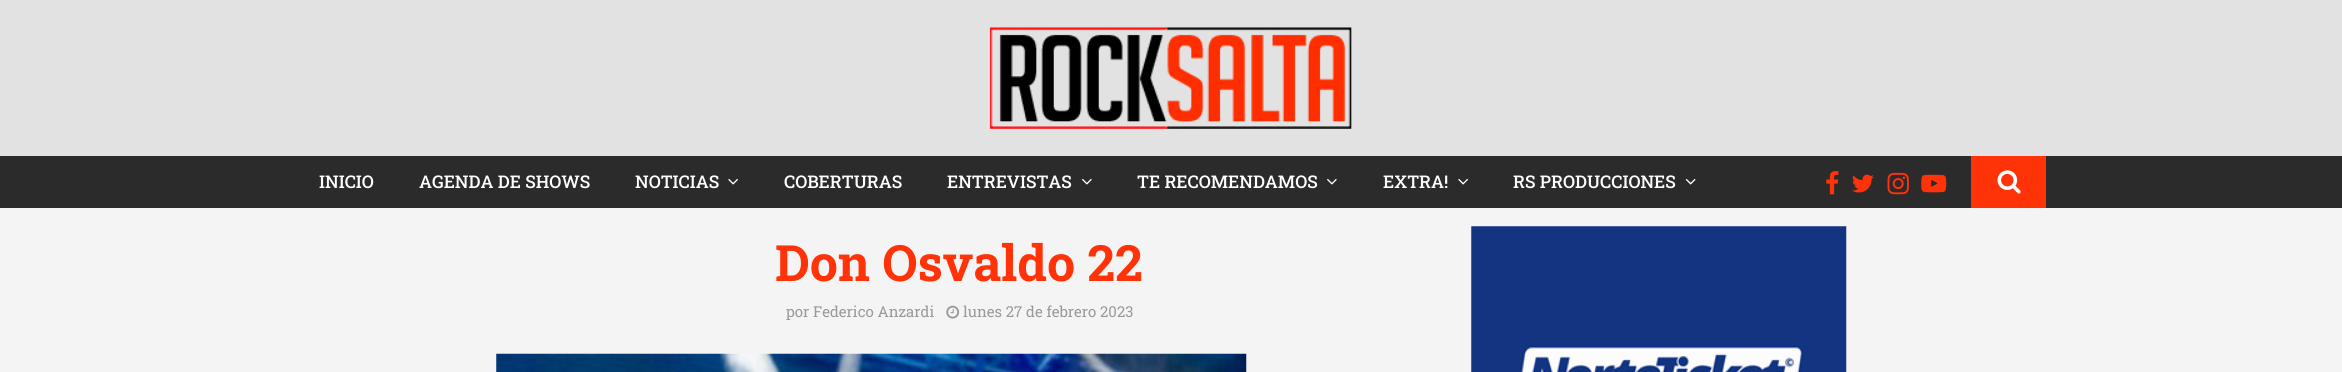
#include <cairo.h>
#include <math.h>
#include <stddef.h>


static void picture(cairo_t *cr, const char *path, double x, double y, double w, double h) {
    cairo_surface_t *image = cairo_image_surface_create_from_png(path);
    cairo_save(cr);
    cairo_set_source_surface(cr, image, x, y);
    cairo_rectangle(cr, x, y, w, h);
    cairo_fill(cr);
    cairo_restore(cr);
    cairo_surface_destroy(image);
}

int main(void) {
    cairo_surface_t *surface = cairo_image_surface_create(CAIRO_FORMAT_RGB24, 2342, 372);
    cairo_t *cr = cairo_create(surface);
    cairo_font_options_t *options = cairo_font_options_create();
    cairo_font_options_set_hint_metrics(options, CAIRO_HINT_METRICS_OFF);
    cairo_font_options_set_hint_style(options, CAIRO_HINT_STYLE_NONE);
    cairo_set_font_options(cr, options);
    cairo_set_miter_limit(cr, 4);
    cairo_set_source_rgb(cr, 0.957, 0.957, 0.957);
    cairo_paint(cr);
    cairo_set_source_rgb(cr, 0.886, 0.886, 0.886);
    cairo_rectangle(cr, 0, 0, 2342, 156);
    cairo_fill(cr);
    picture(cr, "img1.png", 989, 27, 363, 102);
    cairo_set_source_rgb(cr, 0.169, 0.169, 0.169);
    cairo_rectangle(cr, 0, 156, 2342, 52);
    cairo_fill(cr);
    cairo_select_font_face(cr, "Roboto Slab Medium", CAIRO_FONT_SLANT_NORMAL, CAIRO_FONT_WEIGHT_NORMAL);
    cairo_set_font_size(cr, 17.5);
    cairo_set_source_rgb(cr, 1, 1, 1);
    cairo_move_to(cr, 319, 188);
    cairo_show_text(cr, "INICIO");
    cairo_move_to(cr, 419, 188);
    cairo_show_text(cr, "AGENDA DE SHOWS");
    cairo_move_to(cr, 635, 188);
    cairo_show_text(cr, "NOTICIAS");
    picture(cr, "img2.png", 728, 178, 10, 7);
    cairo_move_to(cr, 784, 188);
    cairo_show_text(cr, "COBERTURAS");
    cairo_move_to(cr, 947, 188);
    cairo_show_text(cr, "ENTREVISTAS");
    picture(cr, "img3.png", 1082, 178, 10, 7);
    cairo_move_to(cr, 1137, 188);
    cairo_show_text(cr, "TE RECOMENDAMOS");
    picture(cr, "img3.png", 1327, 178, 10, 7);
    cairo_move_to(cr, 1383, 188);
    cairo_show_text(cr, "EXTRA!");
    picture(cr, "img2.png", 1458, 178, 10, 7);
    cairo_move_to(cr, 1513, 188);
    cairo_show_text(cr, "RS PRODUCCIONES");
    picture(cr, "img4.png", 1685, 178, 11, 7);
    picture(cr, "img5.png", 1826, 171, 13, 24);
    picture(cr, "img6.png", 1852, 174, 22, 19);
    picture(cr, "img7.png", 1887, 172, 22, 23);
    picture(cr, "img8.png", 1921, 174, 26, 19);
    cairo_set_source_rgb(cr, 1, 0.196, 0.035);
    cairo_rectangle(cr, 1971, 156, 75, 52);
    cairo_fill(cr);
    picture(cr, "img9.png", 1997, 170, 24, 24);
    cairo_select_font_face(cr, "Roboto Slab", CAIRO_FONT_SLANT_NORMAL, CAIRO_FONT_WEIGHT_BOLD);
    cairo_set_font_size(cr, 50);
    cairo_move_to(cr, 775, 281);
    cairo_show_text(cr, "Don Osvaldo 22");
    cairo_select_font_face(cr, "Roboto Slab", CAIRO_FONT_SLANT_NORMAL, CAIRO_FONT_WEIGHT_NORMAL);
    cairo_set_font_size(cr, 15);
    cairo_set_source_rgb(cr, 0.6, 0.6, 0.6);
    cairo_move_to(cr, 786, 317);
    cairo_show_text(cr, "por Federico Anzardi");
    picture(cr, "img10.png", 946, 305, 14, 14);
    cairo_move_to(cr, 963, 317);
    cairo_show_text(cr, "lunes 27 de febrero 2023");
    picture(cr, "img11.png", 496, 353, 751, 19);
    picture(cr, "img12.png", 1471, 226, 376, 146);
    cairo_surface_write_to_png(surface, "page.png");
    cairo_font_options_destroy(options);
    cairo_destroy(cr);
    cairo_surface_destroy(surface);
    return 0;
}
